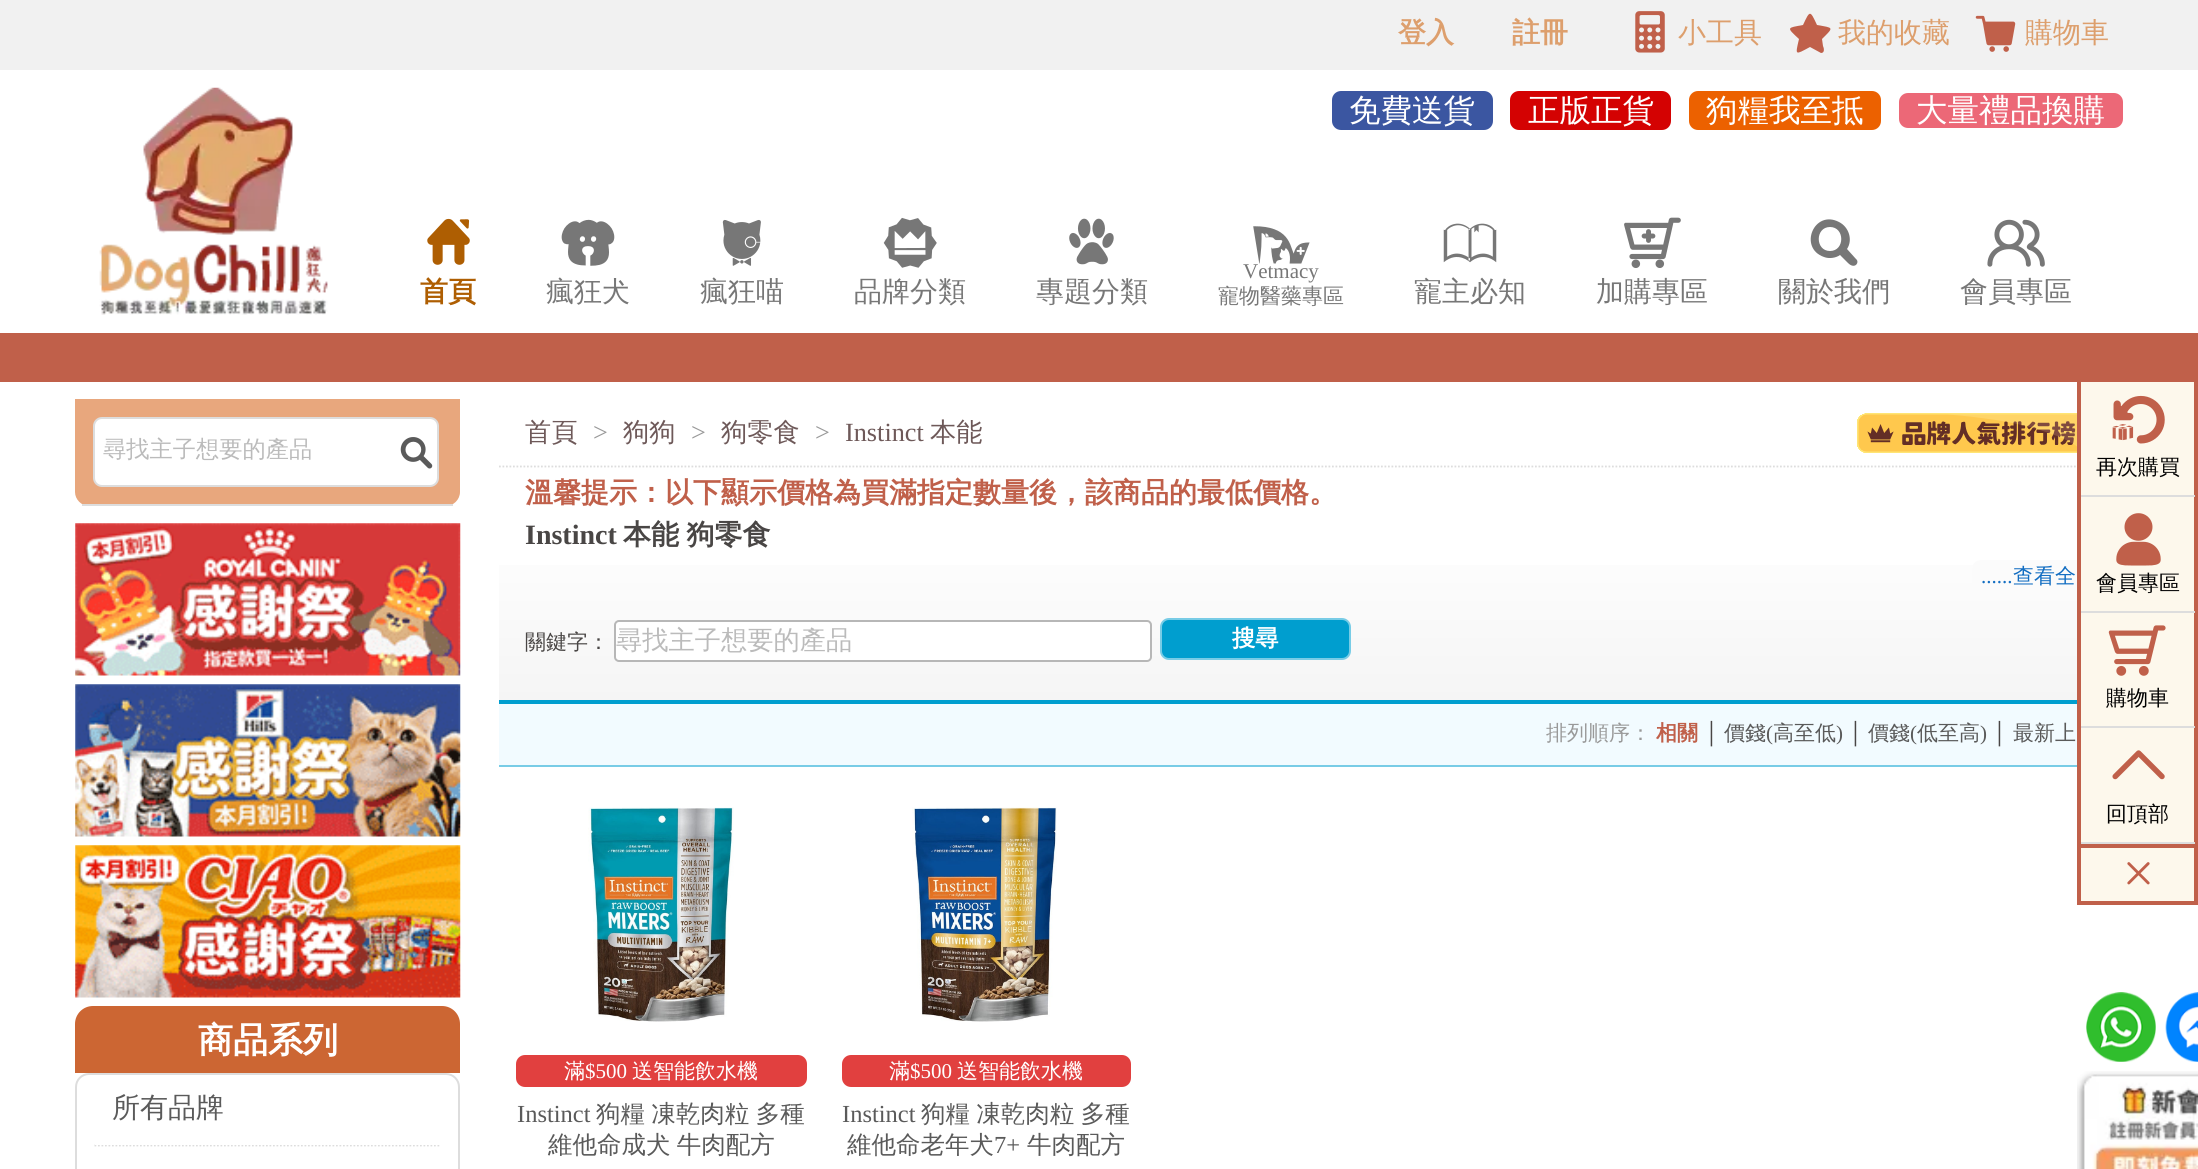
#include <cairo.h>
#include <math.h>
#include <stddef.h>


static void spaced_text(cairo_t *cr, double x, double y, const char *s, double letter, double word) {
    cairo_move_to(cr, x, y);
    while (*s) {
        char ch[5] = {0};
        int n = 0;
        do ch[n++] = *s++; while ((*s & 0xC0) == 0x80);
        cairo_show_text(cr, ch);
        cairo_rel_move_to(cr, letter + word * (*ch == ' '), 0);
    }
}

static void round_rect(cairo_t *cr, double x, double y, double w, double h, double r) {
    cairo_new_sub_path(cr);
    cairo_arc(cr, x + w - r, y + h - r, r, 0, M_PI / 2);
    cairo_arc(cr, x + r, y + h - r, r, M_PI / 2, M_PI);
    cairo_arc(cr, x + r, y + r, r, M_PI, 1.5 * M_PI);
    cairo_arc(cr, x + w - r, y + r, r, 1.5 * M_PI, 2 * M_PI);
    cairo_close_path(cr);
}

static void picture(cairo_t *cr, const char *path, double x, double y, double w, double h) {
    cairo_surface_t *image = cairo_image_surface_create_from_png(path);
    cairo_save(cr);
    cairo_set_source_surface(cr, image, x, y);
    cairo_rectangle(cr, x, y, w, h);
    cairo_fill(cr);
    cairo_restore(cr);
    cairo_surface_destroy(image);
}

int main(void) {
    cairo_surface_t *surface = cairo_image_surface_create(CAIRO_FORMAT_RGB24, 2198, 1169);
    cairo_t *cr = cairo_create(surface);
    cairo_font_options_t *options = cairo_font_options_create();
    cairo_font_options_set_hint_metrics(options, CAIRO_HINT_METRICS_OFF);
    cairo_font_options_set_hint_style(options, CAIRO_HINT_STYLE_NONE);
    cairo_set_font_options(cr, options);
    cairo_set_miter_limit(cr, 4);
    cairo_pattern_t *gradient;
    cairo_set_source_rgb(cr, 1, 1, 1);
    cairo_paint(cr);
    cairo_set_source_rgb(cr, 0.945, 0.945, 0.945);
    cairo_rectangle(cr, 0, 0, 2198, 70);
    cairo_fill(cr);
    cairo_select_font_face(cr, "WenQuanYi Zen Hei", CAIRO_FONT_SLANT_NORMAL, CAIRO_FONT_WEIGHT_BOLD);
    cairo_set_font_size(cr, 28);
    cairo_set_source_rgb(cr, 0.867, 0.624, 0.427);
    cairo_move_to(cr, 1398, 42);
    cairo_show_text(cr, "登入");
    cairo_move_to(cr, 1512, 42);
    cairo_show_text(cr, "註冊");
    picture(cr, "img1.png", 1635, 11, 30, 42);
    cairo_select_font_face(cr, "WenQuanYi Zen Hei Medium", CAIRO_FONT_SLANT_NORMAL, CAIRO_FONT_WEIGHT_NORMAL);
    cairo_move_to(cr, 1678, 42);
    cairo_show_text(cr, "小工具");
    cairo_set_source_rgb(cr, 0.753, 0.376, 0.29);
    cairo_new_path(cr);
    cairo_move_to(cr, 1821, 53);
    cairo_line_to(cr, 1810, 47);
    cairo_curve_to(cr, 1795, 55, 1795, 56, 1799, 39);
    cairo_curve_to(cr, 1786, 27, 1787, 28, 1803, 25);
    cairo_curve_to(cr, 1810, 10, 1810, 10, 1817, 25);
    cairo_curve_to(cr, 1834, 28, 1834, 27, 1822, 39);
    cairo_line_to(cr, 1823, 46);
    cairo_curve_to(cr, 1824, 48, 1825, 53, 1821, 53);
    cairo_close_path(cr);
    cairo_fill(cr);
    cairo_set_source_rgb(cr, 0.867, 0.624, 0.427);
    cairo_move_to(cr, 1838, 42);
    cairo_show_text(cr, "我的收藏");
    picture(cr, "img2.png", 1975, 15, 41, 37);
    cairo_move_to(cr, 2025, 42);
    cairo_show_text(cr, "購物車");
    picture(cr, "img3.png", 99, 87, 229, 228);
    cairo_set_source_rgb(cr, 0.231, 0.337, 0.631);
    round_rect(cr, 1332, 91, 161, 39, 9);
    cairo_fill(cr);
    cairo_set_font_size(cr, 31.5);
    cairo_set_source_rgb(cr, 1, 1, 1);
    cairo_move_to(cr, 1349, 121);
    cairo_show_text(cr, "免費送貨");
    cairo_set_source_rgb(cr, 0.831, 0.008, 0.008);
    round_rect(cr, 1510, 91, 161, 39, 9);
    cairo_fill(cr);
    cairo_set_source_rgb(cr, 1, 1, 1);
    cairo_move_to(cr, 1528, 121);
    cairo_show_text(cr, "正版正貨");
    cairo_set_source_rgb(cr, 0.922, 0.38, 0);
    round_rect(cr, 1689, 91, 192, 39, 9);
    cairo_fill(cr);
    cairo_set_source_rgb(cr, 1, 1, 1);
    cairo_move_to(cr, 1706, 121);
    cairo_show_text(cr, "狗糧我至抵");
    cairo_set_source_rgb(cr, 0.922, 0.408, 0.467);
    round_rect(cr, 1899, 93, 224, 35, 9);
    cairo_fill(cr);
    cairo_set_source_rgb(cr, 1, 1, 1);
    cairo_move_to(cr, 1916, 121);
    cairo_show_text(cr, "大量禮品換購");
    picture(cr, "img4.png", 427, 218, 43, 47);
    cairo_select_font_face(cr, "WenQuanYi Zen Hei", CAIRO_FONT_SLANT_NORMAL, CAIRO_FONT_WEIGHT_BOLD);
    cairo_set_font_size(cr, 28);
    cairo_set_source_rgb(cr, 0.682, 0.369, 0.008);
    cairo_move_to(cr, 420, 301);
    cairo_show_text(cr, "首頁");
    picture(cr, "img5.png", 561, 219, 54, 47);
    cairo_select_font_face(cr, "WenQuanYi Zen Hei Medium", CAIRO_FONT_SLANT_NORMAL, CAIRO_FONT_WEIGHT_NORMAL);
    cairo_set_source_rgb(cr, 0.467, 0.467, 0.467);
    cairo_move_to(cr, 546, 301);
    cairo_show_text(cr, "瘋狂犬");
    picture(cr, "img6.png", 722, 219, 39, 47);
    cairo_move_to(cr, 700, 301);
    cairo_show_text(cr, "瘋狂喵");
    picture(cr, "img7.png", 883, 217, 54, 51);
    cairo_move_to(cr, 854, 301);
    cairo_show_text(cr, "品牌分類");
    picture(cr, "img8.png", 1069, 218, 45, 47);
    cairo_move_to(cr, 1036, 301);
    cairo_show_text(cr, "專題分類");
    picture(cr, "img9.png", 1253, 226, 57, 38);
    cairo_select_font_face(cr, "Liberation Serif", CAIRO_FONT_SLANT_NORMAL, CAIRO_FONT_WEIGHT_NORMAL);
    cairo_set_font_size(cr, 21);
    cairo_move_to(cr, 1243, 278);
    cairo_show_text(cr, "Vetmacy");
    cairo_select_font_face(cr, "WenQuanYi Zen Hei Medium", CAIRO_FONT_SLANT_NORMAL, CAIRO_FONT_WEIGHT_NORMAL);
    cairo_move_to(cr, 1218, 303);
    cairo_show_text(cr, "寵物醫藥專區");
    picture(cr, "img10.png", 1443, 223, 54, 40);
    cairo_set_font_size(cr, 28);
    cairo_move_to(cr, 1414, 301);
    cairo_show_text(cr, "寵主必知");
    picture(cr, "img11.png", 1624, 217, 57, 51);
    cairo_move_to(cr, 1596, 301);
    cairo_show_text(cr, "加購專區");
    cairo_new_path(cr);
    cairo_move_to(cr, 1856, 259);
    cairo_line_to(cr, 1847, 249);
    cairo_curve_to(cr, 1853, 240, 1849, 227, 1839, 222);
    cairo_curve_to(cr, 1814, 209, 1798, 248, 1824, 257);
    cairo_curve_to(cr, 1829, 259, 1836, 258, 1840, 255);
    cairo_line_to(cr, 1848, 263);
    cairo_curve_to(cr, 1855, 270, 1860, 262, 1856, 259);
    cairo_close_path(cr);
    cairo_move_to(cr, 1830, 251);
    cairo_curve_to(cr, 1815, 251, 1815, 227, 1830, 227);
    cairo_curve_to(cr, 1845, 227, 1845, 251, 1830, 251);
    cairo_close_path(cr);
    cairo_fill(cr);
    cairo_move_to(cr, 1778, 301);
    cairo_show_text(cr, "關於我們");
    picture(cr, "img12.png", 1987, 219, 58, 48);
    cairo_move_to(cr, 1960, 301);
    cairo_show_text(cr, "會員專區");
    cairo_set_source_rgb(cr, 0.753, 0.376, 0.29);
    cairo_rectangle(cr, 0, 333, 2198, 49);
    cairo_fill(cr);
    cairo_set_source_rgb(cr, 0.91, 0.655, 0.49);
    cairo_new_path(cr);
    cairo_move_to(cr, 75, 399);
    cairo_line_to(cr, 460, 399);
    cairo_line_to(cr, 460, 492);
    cairo_curve_to(cr, 460, 499.5, 453.5, 506, 446, 506);
    cairo_line_to(cr, 89, 506);
    cairo_curve_to(cr, 81.5, 506, 75, 499.5, 75, 492);
    cairo_close_path(cr);
    cairo_fill(cr);
    cairo_set_source_rgb(cr, 0.867, 0.867, 0.867);
    cairo_rectangle(cr, 82, 504, 371, 2);
    cairo_fill(cr);
    cairo_set_source_rgb(cr, 1, 1, 1);
    round_rect(cr, 94, 418, 344, 68, 8);
    cairo_fill_preserve(cr);
    cairo_set_source_rgb(cr, 0.867, 0.867, 0.867);
    cairo_stroke(cr);
    cairo_set_font_size(cr, 23.25);
    cairo_set_source_rgb(cr, 0.733, 0.733, 0.733);
    cairo_move_to(cr, 103, 457);
    cairo_show_text(cr, "尋找主子想要的產品");
    picture(cr, "img13.png", 400, 437, 33, 32);
    picture(cr, "img14.png", 75, 523, 386, 153);
    picture(cr, "img15.png", 75, 684, 386, 153);
    picture(cr, "img16.png", 75, 845, 386, 153);
    cairo_set_source_rgb(cr, 0.8, 0.4, 0.2);
    cairo_new_path(cr);
    cairo_move_to(cr, 93, 1006);
    cairo_line_to(cr, 442, 1006);
    cairo_curve_to(cr, 452, 1006, 460, 1014, 460, 1024);
    cairo_line_to(cr, 460, 1073);
    cairo_line_to(cr, 75, 1073);
    cairo_line_to(cr, 75, 1024);
    cairo_curve_to(cr, 75, 1014, 83, 1006, 93, 1006);
    cairo_close_path(cr);
    cairo_fill(cr);
    cairo_select_font_face(cr, "WenQuanYi Zen Hei", CAIRO_FONT_SLANT_NORMAL, CAIRO_FONT_WEIGHT_BOLD);
    cairo_set_font_size(cr, 35);
    cairo_set_source_rgb(cr, 1, 1, 1);
    cairo_move_to(cr, 198, 1052);
    cairo_show_text(cr, "商品系列");
    round_rect(cr, 76, 1074, 383, 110, 13);
    cairo_set_source_rgb(cr, 0.867, 0.867, 0.867);
    cairo_stroke(cr);
    cairo_new_path(cr);
    cairo_move_to(cr, 94.5, 1145.5);
    cairo_line_to(cr, 441, 1145.5);
    cairo_set_line_width(cr, 1.8);
    cairo_set_dash(cr, (double[]){1.75, 1.75}, 2, 0);
    cairo_stroke(cr);
    cairo_set_source_rgb(cr, 1, 1, 1);
    cairo_rectangle(cr, 95, 1144, 346, 1);
    cairo_fill(cr);
    cairo_select_font_face(cr, "WenQuanYi Zen Hei Medium", CAIRO_FONT_SLANT_NORMAL, CAIRO_FONT_WEIGHT_NORMAL);
    cairo_set_font_size(cr, 28);
    cairo_set_source_rgb(cr, 0.353, 0.353, 0.353);
    cairo_move_to(cr, 112, 1117);
    cairo_show_text(cr, "所有品牌");
    cairo_new_path(cr);
    cairo_move_to(cr, 499, 466.5);
    cairo_line_to(cr, 2123, 466.5);
    cairo_set_source_rgb(cr, 0.867, 0.867, 0.867);
    cairo_stroke(cr);
    cairo_set_font_size(cr, 26.25);
    cairo_set_source_rgb(cr, 0.431, 0.349, 0.349);
    cairo_move_to(cr, 525, 441);
    cairo_show_text(cr, "首頁");
    cairo_select_font_face(cr, "Liberation Serif", CAIRO_FONT_SLANT_NORMAL, CAIRO_FONT_WEIGHT_NORMAL);
    cairo_set_source_rgb(cr, 0.6, 0.6, 0.6);
    cairo_move_to(cr, 593, 441);
    cairo_show_text(cr, ">");
    cairo_select_font_face(cr, "WenQuanYi Zen Hei Medium", CAIRO_FONT_SLANT_NORMAL, CAIRO_FONT_WEIGHT_NORMAL);
    cairo_set_source_rgb(cr, 0.431, 0.349, 0.349);
    cairo_move_to(cr, 623, 441);
    cairo_show_text(cr, "狗狗");
    cairo_select_font_face(cr, "Liberation Serif", CAIRO_FONT_SLANT_NORMAL, CAIRO_FONT_WEIGHT_NORMAL);
    cairo_set_source_rgb(cr, 0.6, 0.6, 0.6);
    cairo_move_to(cr, 691, 441);
    cairo_show_text(cr, ">");
    cairo_select_font_face(cr, "WenQuanYi Zen Hei Medium", CAIRO_FONT_SLANT_NORMAL, CAIRO_FONT_WEIGHT_NORMAL);
    cairo_set_source_rgb(cr, 0.431, 0.349, 0.349);
    cairo_move_to(cr, 721, 441);
    cairo_show_text(cr, "狗零食");
    cairo_select_font_face(cr, "Liberation Serif", CAIRO_FONT_SLANT_NORMAL, CAIRO_FONT_WEIGHT_NORMAL);
    cairo_set_source_rgb(cr, 0.6, 0.6, 0.6);
    cairo_move_to(cr, 815, 441);
    cairo_show_text(cr, ">");
    cairo_set_source_rgb(cr, 0.431, 0.349, 0.349);
    cairo_move_to(cr, 845, 441);
    cairo_show_text(cr, "Instinct");
    cairo_select_font_face(cr, "WenQuanYi Zen Hei Medium", CAIRO_FONT_SLANT_NORMAL, CAIRO_FONT_WEIGHT_NORMAL);
    cairo_move_to(cr, 930, 441);
    cairo_show_text(cr, "本能");
    picture(cr, "img17.png", 1857, 413, 220, 40);
    cairo_select_font_face(cr, "WenQuanYi Zen Hei", CAIRO_FONT_SLANT_NORMAL, CAIRO_FONT_WEIGHT_BOLD);
    cairo_set_font_size(cr, 28);
    cairo_set_source_rgb(cr, 0.753, 0.376, 0.29);
    cairo_move_to(cr, 525, 502);
    cairo_show_text(cr, "溫馨提示：以下顯示價格為買滿指定數量後，該商品的最低價格。");
    gradient = cairo_pattern_create_linear(499, 520, 499, 700);
    cairo_pattern_add_color_stop_rgba(gradient, 0, 1, 1, 1, 1);
    cairo_pattern_add_color_stop_rgba(gradient, 1, 0.961, 0.961, 0.961, 1);
    cairo_set_source(cr, gradient);
    cairo_pattern_destroy(gradient);
    cairo_rectangle(cr, 499, 565, 1578, 135);
    cairo_fill(cr);
    cairo_select_font_face(cr, "Liberation Serif", CAIRO_FONT_SLANT_NORMAL, CAIRO_FONT_WEIGHT_BOLD);
    cairo_set_source_rgb(cr, 0.286, 0.275, 0.271);
    cairo_move_to(cr, 525, 544);
    cairo_show_text(cr, "Instinct");
    cairo_select_font_face(cr, "WenQuanYi Zen Hei", CAIRO_FONT_SLANT_NORMAL, CAIRO_FONT_WEIGHT_BOLD);
    spaced_text(cr, 623, 544, "本能 狗零食", 0, -1);
    cairo_set_source_rgb(cr, 0.984, 0.984, 0.984);
    round_rect(cr, 1972, 560, 125, 32, 9);
    cairo_fill(cr);
    cairo_select_font_face(cr, "Liberation Serif", CAIRO_FONT_SLANT_NORMAL, CAIRO_FONT_WEIGHT_NORMAL);
    cairo_set_font_size(cr, 21);
    cairo_set_source_rgb(cr, 0.075, 0.431, 0.761);
    cairo_move_to(cr, 1981, 583);
    cairo_show_text(cr, "......");
    cairo_select_font_face(cr, "WenQuanYi Zen Hei Medium", CAIRO_FONT_SLANT_NORMAL, CAIRO_FONT_WEIGHT_NORMAL);
    cairo_move_to(cr, 2013, 583);
    cairo_show_text(cr, "查看全");
    cairo_set_source_rgb(cr, 0.286, 0.275, 0.271);
    cairo_move_to(cr, 525, 649);
    cairo_show_text(cr, "關鍵字：");
    cairo_set_source_rgb(cr, 1, 1, 1);
    round_rect(cr, 615, 621, 536, 40, 4);
    cairo_fill_preserve(cr);
    cairo_set_source_rgb(cr, 0.718, 0.718, 0.718);
    cairo_set_line_width(cr, 2);
    cairo_set_dash(cr, NULL, 0, 0);
    cairo_stroke(cr);
    cairo_set_font_size(cr, 26.25);
    cairo_set_source_rgb(cr, 0.733, 0.733, 0.733);
    cairo_move_to(cr, 616, 649);
    cairo_show_text(cr, "尋找主子想要的產品");
    cairo_set_source_rgb(cr, 0, 0.62, 0.812);
    round_rect(cr, 1161, 619, 189, 40, 8);
    cairo_fill_preserve(cr);
    cairo_set_source_rgb(cr, 0.471, 0.8, 0.902);
    cairo_stroke(cr);
    cairo_select_font_face(cr, "WenQuanYi Zen Hei", CAIRO_FONT_SLANT_NORMAL, CAIRO_FONT_WEIGHT_BOLD);
    cairo_set_font_size(cr, 23.25);
    cairo_set_source_rgb(cr, 1, 1, 1);
    cairo_move_to(cr, 1232, 646);
    cairo_show_text(cr, "搜尋");
    cairo_set_source_rgb(cr, 0.949, 0.984, 1);
    cairo_rectangle(cr, 499, 704, 1578, 61);
    cairo_fill(cr);
    cairo_set_source_rgb(cr, 0, 0.62, 0.812);
    cairo_rectangle(cr, 499, 700, 1578, 4);
    cairo_fill(cr);
    cairo_set_source_rgb(cr, 0.471, 0.8, 0.902);
    cairo_rectangle(cr, 499, 765, 1578, 2);
    cairo_fill(cr);
    cairo_select_font_face(cr, "WenQuanYi Zen Hei Medium", CAIRO_FONT_SLANT_NORMAL, CAIRO_FONT_WEIGHT_NORMAL);
    cairo_set_font_size(cr, 21);
    cairo_set_source_rgb(cr, 0.6, 0.6, 0.6);
    cairo_move_to(cr, 1546, 740);
    cairo_show_text(cr, "排列順序：");
    cairo_select_font_face(cr, "WenQuanYi Zen Hei", CAIRO_FONT_SLANT_NORMAL, CAIRO_FONT_WEIGHT_BOLD);
    cairo_set_source_rgb(cr, 0.753, 0.376, 0.29);
    cairo_move_to(cr, 1656, 740);
    cairo_show_text(cr, "相關");
    cairo_select_font_face(cr, "Liberation Serif", CAIRO_FONT_SLANT_NORMAL, CAIRO_FONT_WEIGHT_NORMAL);
    cairo_set_source_rgb(cr, 0.286, 0.275, 0.271);
    cairo_move_to(cr, 1704, 740);
    cairo_show_text(cr, "│");
    cairo_select_font_face(cr, "WenQuanYi Zen Hei Medium", CAIRO_FONT_SLANT_NORMAL, CAIRO_FONT_WEIGHT_NORMAL);
    cairo_set_source_rgb(cr, 0.353, 0.353, 0.353);
    cairo_move_to(cr, 1724, 740);
    cairo_show_text(cr, "價錢");
    cairo_select_font_face(cr, "Liberation Serif", CAIRO_FONT_SLANT_NORMAL, CAIRO_FONT_WEIGHT_NORMAL);
    cairo_move_to(cr, 1766, 740);
    cairo_show_text(cr, "(");
    cairo_select_font_face(cr, "WenQuanYi Zen Hei Medium", CAIRO_FONT_SLANT_NORMAL, CAIRO_FONT_WEIGHT_NORMAL);
    cairo_move_to(cr, 1773, 740);
    cairo_show_text(cr, "高至低");
    cairo_select_font_face(cr, "Liberation Serif", CAIRO_FONT_SLANT_NORMAL, CAIRO_FONT_WEIGHT_NORMAL);
    cairo_move_to(cr, 1836, 740);
    cairo_show_text(cr, ")");
    cairo_set_source_rgb(cr, 0.286, 0.275, 0.271);
    cairo_move_to(cr, 1848, 740);
    cairo_show_text(cr, "│");
    cairo_select_font_face(cr, "WenQuanYi Zen Hei Medium", CAIRO_FONT_SLANT_NORMAL, CAIRO_FONT_WEIGHT_NORMAL);
    cairo_set_source_rgb(cr, 0.353, 0.353, 0.353);
    cairo_move_to(cr, 1868, 740);
    cairo_show_text(cr, "價錢");
    cairo_select_font_face(cr, "Liberation Serif", CAIRO_FONT_SLANT_NORMAL, CAIRO_FONT_WEIGHT_NORMAL);
    cairo_move_to(cr, 1910, 740);
    cairo_show_text(cr, "(");
    cairo_select_font_face(cr, "WenQuanYi Zen Hei Medium", CAIRO_FONT_SLANT_NORMAL, CAIRO_FONT_WEIGHT_NORMAL);
    cairo_move_to(cr, 1917, 740);
    cairo_show_text(cr, "低至高");
    cairo_select_font_face(cr, "Liberation Serif", CAIRO_FONT_SLANT_NORMAL, CAIRO_FONT_WEIGHT_NORMAL);
    cairo_move_to(cr, 1980, 740);
    cairo_show_text(cr, ")");
    cairo_set_source_rgb(cr, 0.286, 0.275, 0.271);
    cairo_move_to(cr, 1992, 740);
    cairo_show_text(cr, "│");
    cairo_select_font_face(cr, "WenQuanYi Zen Hei Medium", CAIRO_FONT_SLANT_NORMAL, CAIRO_FONT_WEIGHT_NORMAL);
    cairo_set_source_rgb(cr, 0.353, 0.353, 0.353);
    cairo_move_to(cr, 2013, 740);
    cairo_show_text(cr, "最新上");
    picture(cr, "img18.png", 588, 807, 146, 215);
    cairo_set_source_rgb(cr, 0.882, 0.251, 0.247);
    round_rect(cr, 516, 1055, 291, 32, 9);
    cairo_fill(cr);
    cairo_set_source_rgb(cr, 1, 1, 1);
    cairo_move_to(cr, 564, 1078);
    cairo_show_text(cr, "滿");
    cairo_select_font_face(cr, "Liberation Serif", CAIRO_FONT_SLANT_NORMAL, CAIRO_FONT_WEIGHT_NORMAL);
    cairo_move_to(cr, 585, 1078);
    cairo_show_text(cr, "$500");
    cairo_select_font_face(cr, "WenQuanYi Zen Hei Medium", CAIRO_FONT_SLANT_NORMAL, CAIRO_FONT_WEIGHT_NORMAL);
    cairo_move_to(cr, 632, 1078);
    cairo_show_text(cr, "送智能飲水機");
    cairo_select_font_face(cr, "Liberation Serif", CAIRO_FONT_SLANT_NORMAL, CAIRO_FONT_WEIGHT_NORMAL);
    cairo_set_font_size(cr, 24.5);
    cairo_set_source_rgb(cr, 0.353, 0.353, 0.353);
    cairo_move_to(cr, 517, 1122);
    cairo_show_text(cr, "Instinct");
    cairo_select_font_face(cr, "WenQuanYi Zen Hei Medium", CAIRO_FONT_SLANT_NORMAL, CAIRO_FONT_WEIGHT_NORMAL);
    spaced_text(cr, 596, 1122, "狗糧 凍乾肉粒 多種", 0, -1);
    spaced_text(cr, 548, 1153, "維他命成犬 牛肉配方", 0, -1);
    picture(cr, "img19.png", 912, 807, 145, 215);
    cairo_set_source_rgb(cr, 0.882, 0.251, 0.247);
    round_rect(cr, 842, 1055, 289, 32, 9);
    cairo_fill(cr);
    cairo_set_font_size(cr, 21);
    cairo_set_source_rgb(cr, 1, 1, 1);
    cairo_move_to(cr, 889, 1078);
    cairo_show_text(cr, "滿");
    cairo_select_font_face(cr, "Liberation Serif", CAIRO_FONT_SLANT_NORMAL, CAIRO_FONT_WEIGHT_NORMAL);
    cairo_move_to(cr, 910, 1078);
    cairo_show_text(cr, "$500");
    cairo_select_font_face(cr, "WenQuanYi Zen Hei Medium", CAIRO_FONT_SLANT_NORMAL, CAIRO_FONT_WEIGHT_NORMAL);
    cairo_move_to(cr, 957, 1078);
    cairo_show_text(cr, "送智能飲水機");
    cairo_select_font_face(cr, "Liberation Serif", CAIRO_FONT_SLANT_NORMAL, CAIRO_FONT_WEIGHT_NORMAL);
    cairo_set_font_size(cr, 24.5);
    cairo_set_source_rgb(cr, 0.353, 0.353, 0.353);
    cairo_move_to(cr, 842, 1122);
    cairo_show_text(cr, "Instinct");
    cairo_select_font_face(cr, "WenQuanYi Zen Hei Medium", CAIRO_FONT_SLANT_NORMAL, CAIRO_FONT_WEIGHT_NORMAL);
    spaced_text(cr, 921, 1122, "狗糧 凍乾肉粒 多種", 0, -1);
    cairo_move_to(cr, 847, 1153);
    cairo_show_text(cr, "維他命老年犬");
    cairo_select_font_face(cr, "Liberation Serif", CAIRO_FONT_SLANT_NORMAL, CAIRO_FONT_WEIGHT_NORMAL);
    cairo_move_to(cr, 994, 1153);
    cairo_show_text(cr, "7+");
    cairo_select_font_face(cr, "WenQuanYi Zen Hei Medium", CAIRO_FONT_SLANT_NORMAL, CAIRO_FONT_WEIGHT_NORMAL);
    cairo_move_to(cr, 1027, 1153);
    cairo_show_text(cr, "牛肉配方");
    cairo_set_source_rgb(cr, 0.992, 0.969, 0.922);
    cairo_rectangle(cr, 2079, 380, 117, 523);
    cairo_fill_preserve(cr);
    cairo_set_source_rgb(cr, 0.753, 0.376, 0.29);
    cairo_set_line_width(cr, 4);
    cairo_stroke(cr);
    cairo_set_source_rgb(cr, 0.867, 0.867, 0.867);
    cairo_rectangle(cr, 2081, 495, 114, 2);
    cairo_fill(cr);
    picture(cr, "img20.png", 2112, 395, 53, 49);
    cairo_set_font_size(cr, 21);
    cairo_set_source_rgb(cr, 0, 0, 0);
    cairo_move_to(cr, 2096, 474);
    cairo_show_text(cr, "再次購買");
    cairo_set_source_rgb(cr, 0.867, 0.867, 0.867);
    cairo_rectangle(cr, 2081, 611, 114, 2);
    cairo_fill(cr);
    picture(cr, "img21.png", 2116, 513, 45, 53);
    cairo_set_source_rgb(cr, 0, 0, 0);
    cairo_move_to(cr, 2096, 590);
    cairo_show_text(cr, "會員專區");
    cairo_set_source_rgb(cr, 0.867, 0.867, 0.867);
    cairo_rectangle(cr, 2081, 726, 114, 2);
    cairo_fill(cr);
    picture(cr, "img22.png", 2108, 625, 58, 51);
    cairo_set_source_rgb(cr, 0, 0, 0);
    cairo_move_to(cr, 2106, 705);
    cairo_show_text(cr, "購物車");
    cairo_set_source_rgb(cr, 0.867, 0.867, 0.867);
    cairo_rectangle(cr, 2081, 842, 114, 2);
    cairo_fill(cr);
    picture(cr, "img23.png", 2112, 750, 53, 30);
    cairo_set_source_rgb(cr, 0, 0, 0);
    cairo_move_to(cr, 2106, 821);
    cairo_show_text(cr, "回頂部");
    cairo_set_source_rgb(cr, 0.753, 0.376, 0.29);
    cairo_rectangle(cr, 2081, 844, 114, 4);
    cairo_fill(cr);
    picture(cr, "img24.png", 2127, 862, 23, 23);
    picture(cr, "img25.png", 2086, 992, 70, 70);
    picture(cr, "img26.png", 2165, 992, 33, 70);
    picture(cr, "img27.png", 2077, 1071, 121, 98);
    cairo_surface_write_to_png(surface, "page.png");
    cairo_font_options_destroy(options);
    cairo_destroy(cr);
    cairo_surface_destroy(surface);
    return 0;
}
